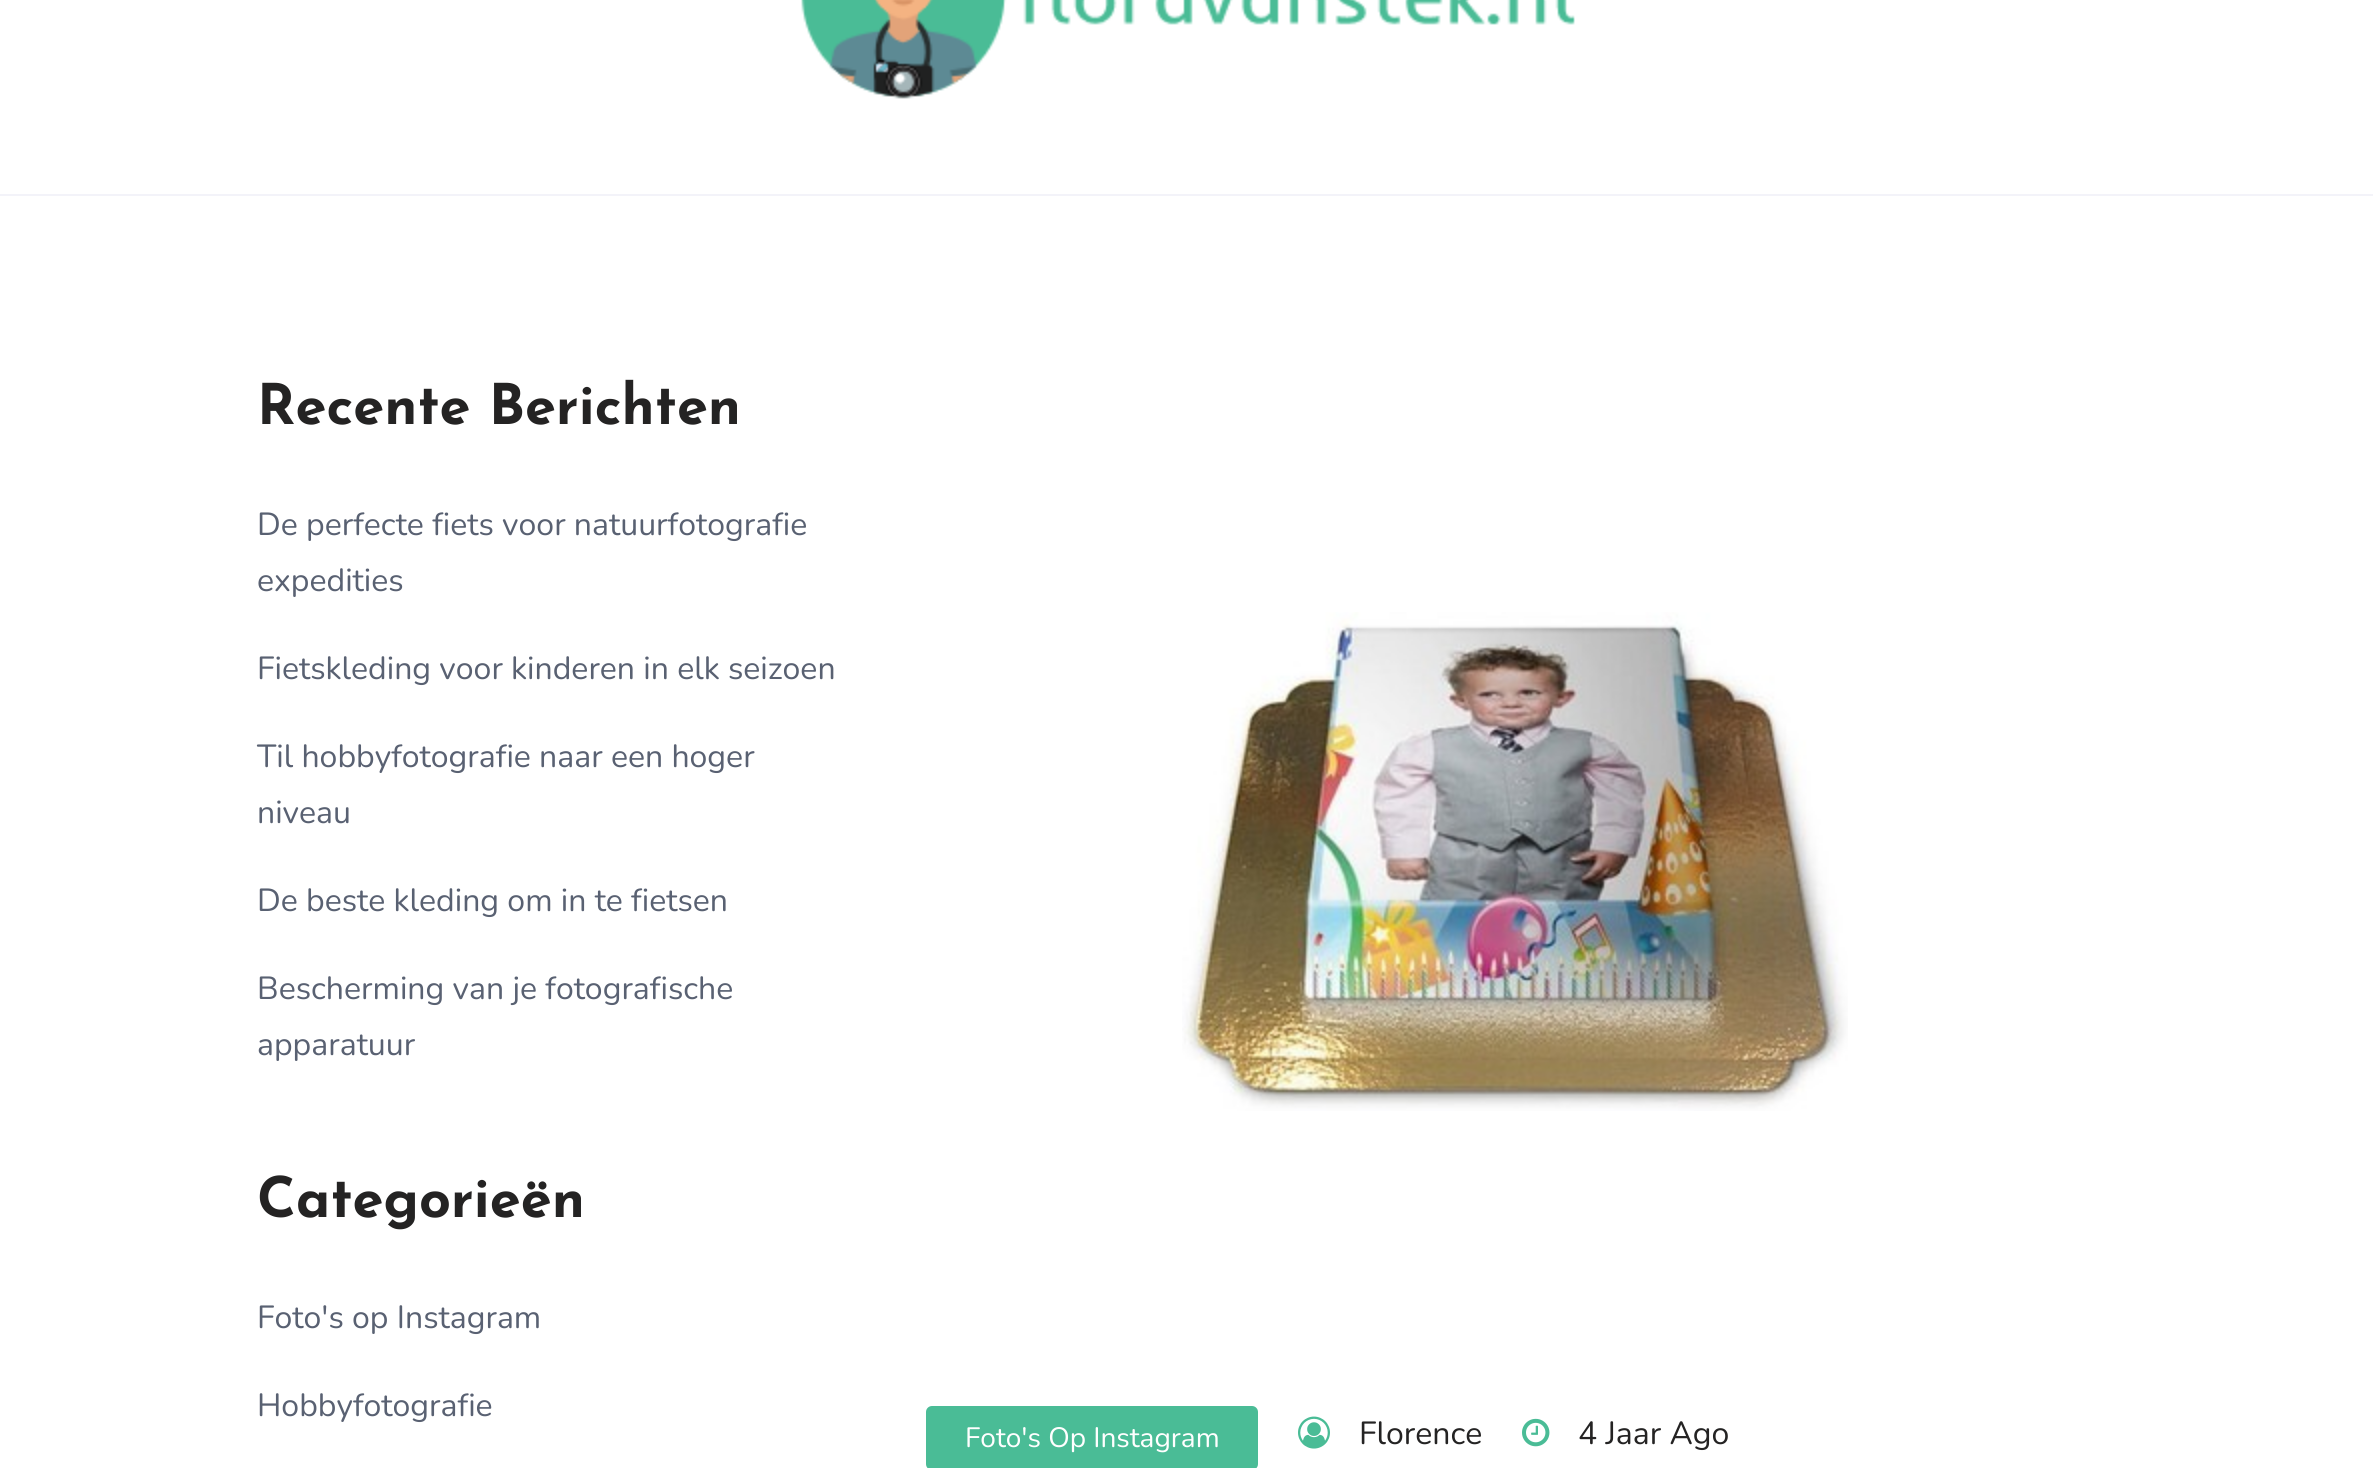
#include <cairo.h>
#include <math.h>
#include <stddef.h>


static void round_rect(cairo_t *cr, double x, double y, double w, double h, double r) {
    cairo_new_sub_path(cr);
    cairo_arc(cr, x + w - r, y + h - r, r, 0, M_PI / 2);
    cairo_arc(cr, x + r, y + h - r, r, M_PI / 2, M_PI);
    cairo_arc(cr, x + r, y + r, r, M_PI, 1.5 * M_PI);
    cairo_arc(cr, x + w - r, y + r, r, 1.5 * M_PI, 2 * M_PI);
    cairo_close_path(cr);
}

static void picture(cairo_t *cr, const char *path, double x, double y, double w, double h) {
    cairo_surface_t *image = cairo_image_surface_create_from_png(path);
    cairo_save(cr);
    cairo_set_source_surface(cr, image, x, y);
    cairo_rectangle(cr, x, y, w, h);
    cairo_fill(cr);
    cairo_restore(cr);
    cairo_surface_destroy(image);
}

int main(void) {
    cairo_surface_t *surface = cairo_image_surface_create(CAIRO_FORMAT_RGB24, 2373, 1468);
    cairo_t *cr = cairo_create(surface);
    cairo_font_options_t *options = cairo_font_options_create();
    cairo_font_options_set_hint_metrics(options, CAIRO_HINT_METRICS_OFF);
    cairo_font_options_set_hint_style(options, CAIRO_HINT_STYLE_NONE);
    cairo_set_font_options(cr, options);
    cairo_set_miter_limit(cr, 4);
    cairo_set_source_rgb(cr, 1, 1, 1);
    cairo_paint(cr);
    cairo_set_source_rgb(cr, 0.953, 0.953, 0.973);
    cairo_rectangle(cr, 0, 194, 2373, 2);
    cairo_fill(cr);
    picture(cr, "img1.png", 801, 0, 774, 99);
    cairo_select_font_face(cr, "Josefin Sans", CAIRO_FONT_SLANT_NORMAL, CAIRO_FONT_WEIGHT_BOLD);
    cairo_set_font_size(cr, 56);
    cairo_set_source_rgb(cr, 0.141, 0.137, 0.137);
    cairo_move_to(cr, 257, 424);
    cairo_show_text(cr, "Recente Berichten");
    cairo_select_font_face(cr, "Nunito", CAIRO_FONT_SLANT_NORMAL, CAIRO_FONT_WEIGHT_NORMAL);
    cairo_set_font_size(cr, 32);
    cairo_set_source_rgb(cr, 0.349, 0.38, 0.447);
    cairo_move_to(cr, 257, 535);
    cairo_show_text(cr, "De perfecte fiets voor natuurfotografie");
    cairo_move_to(cr, 257, 591);
    cairo_show_text(cr, "expedities");
    cairo_move_to(cr, 257, 679);
    cairo_show_text(cr, "Fietskleding voor kinderen in elk seizoen");
    cairo_move_to(cr, 257, 767);
    cairo_show_text(cr, "Til hobbyfotografie naar een hoger");
    cairo_move_to(cr, 257, 823);
    cairo_show_text(cr, "niveau");
    cairo_move_to(cr, 257, 911);
    cairo_show_text(cr, "De beste kleding om in te fietsen");
    cairo_move_to(cr, 257, 999);
    cairo_show_text(cr, "Bescherming van je fotografische");
    cairo_move_to(cr, 257, 1055);
    cairo_show_text(cr, "apparatuur");
    cairo_select_font_face(cr, "Josefin Sans", CAIRO_FONT_SLANT_NORMAL, CAIRO_FONT_WEIGHT_BOLD);
    cairo_set_font_size(cr, 56);
    cairo_set_source_rgb(cr, 0.141, 0.137, 0.137);
    cairo_move_to(cr, 257, 1217);
    cairo_show_text(cr, "Categorieën");
    cairo_select_font_face(cr, "Nunito", CAIRO_FONT_SLANT_NORMAL, CAIRO_FONT_WEIGHT_NORMAL);
    cairo_set_font_size(cr, 32);
    cairo_set_source_rgb(cr, 0.349, 0.38, 0.447);
    cairo_move_to(cr, 257, 1328);
    cairo_show_text(cr, "Foto's op Instagram");
    cairo_move_to(cr, 257, 1416);
    cairo_show_text(cr, "Hobbyfotografie");
    picture(cr, "img2.png", 1182, 612, 666, 499);
    cairo_set_source_rgb(cr, 0.29, 0.737, 0.588);
    round_rect(cr, 926, 1406, 332, 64, 6);
    cairo_fill(cr);
    cairo_set_font_size(cr, 28);
    cairo_set_source_rgb(cr, 1, 1, 1);
    cairo_move_to(cr, 965, 1447);
    cairo_show_text(cr, "Foto's Op Instagram");
    picture(cr, "img3.png", 1298, 1416, 32, 33);
    cairo_set_font_size(cr, 32);
    cairo_set_source_rgb(cr, 0.141, 0.137, 0.137);
    cairo_move_to(cr, 1359, 1444);
    cairo_show_text(cr, "Florence");
    picture(cr, "img4.png", 1522, 1418, 28, 29);
    cairo_move_to(cr, 1578, 1444);
    cairo_show_text(cr, "4 Jaar Ago");
    cairo_surface_write_to_png(surface, "page.png");
    cairo_font_options_destroy(options);
    cairo_destroy(cr);
    cairo_surface_destroy(surface);
    return 0;
}
